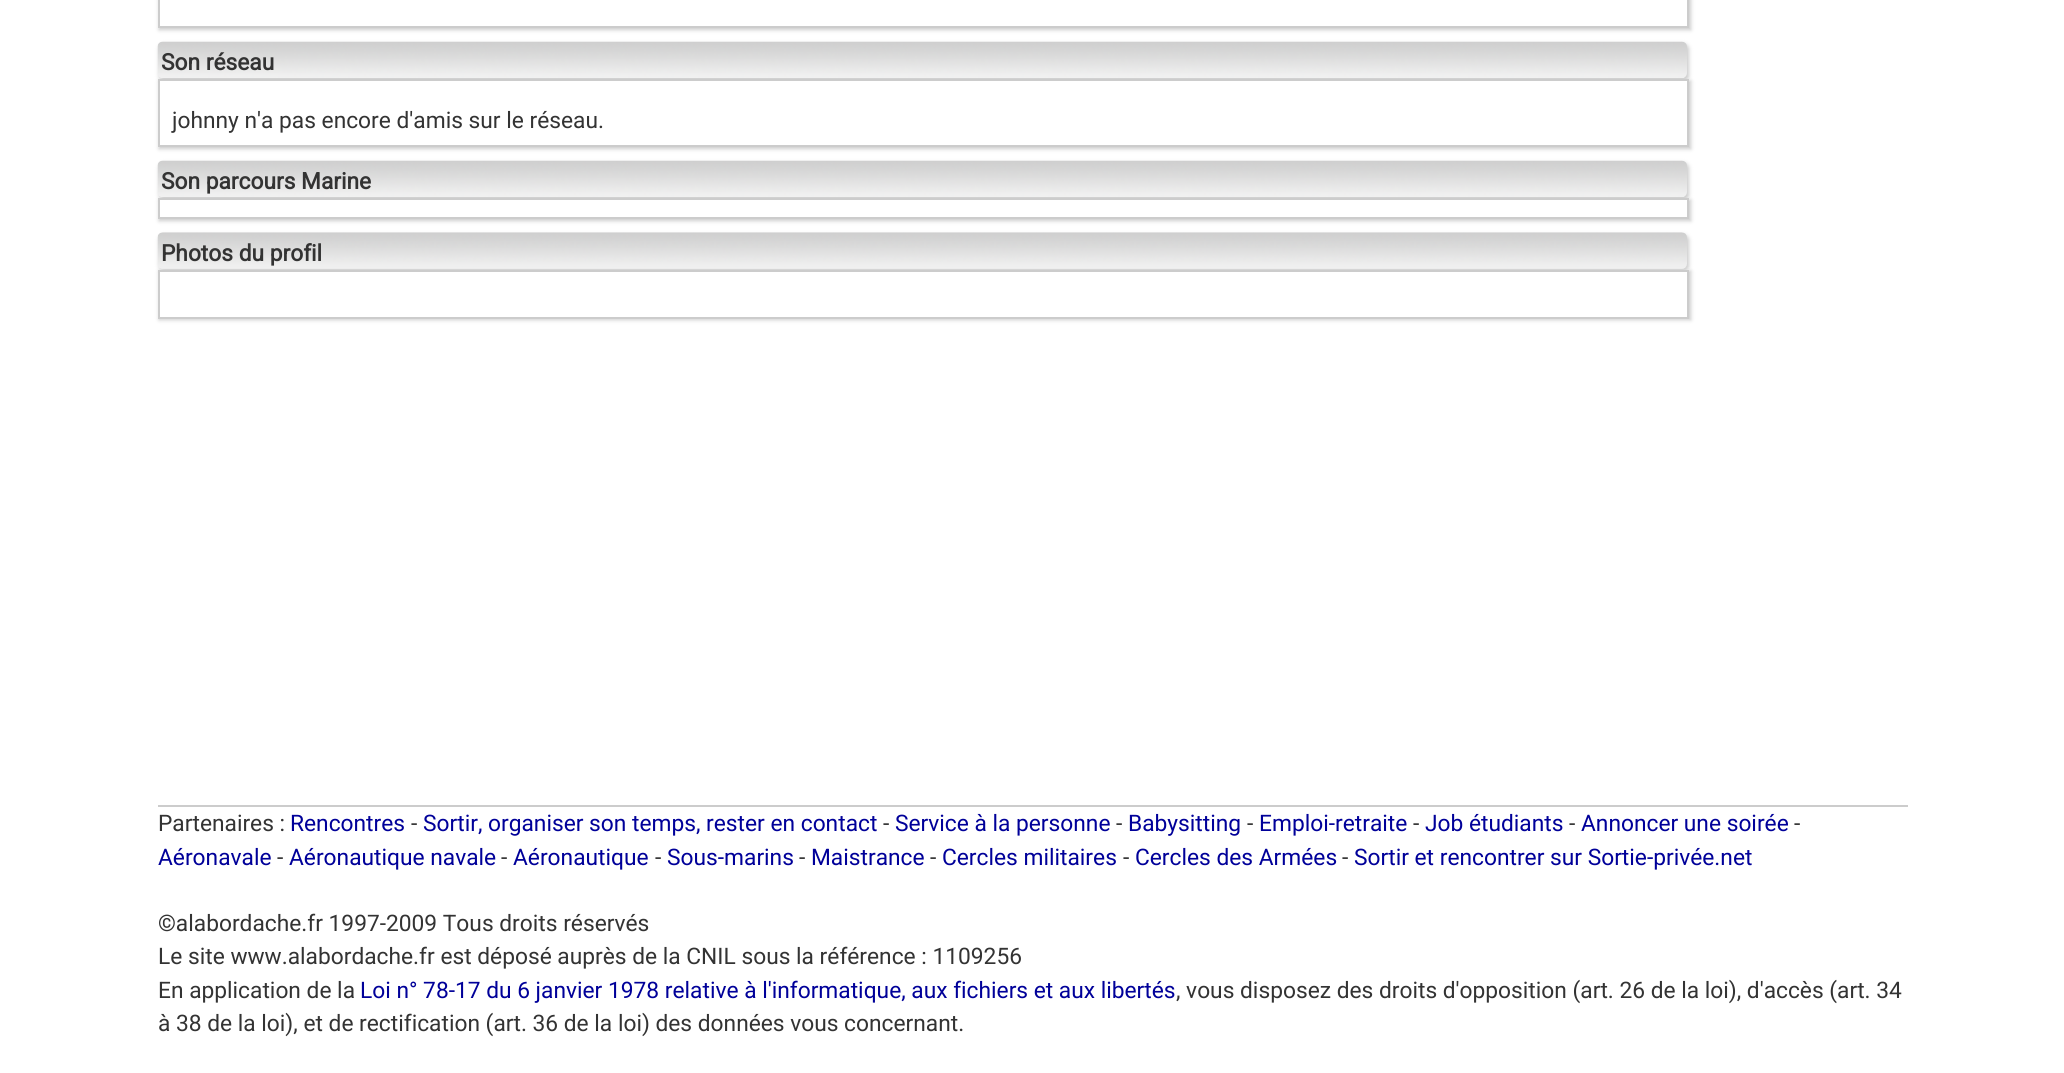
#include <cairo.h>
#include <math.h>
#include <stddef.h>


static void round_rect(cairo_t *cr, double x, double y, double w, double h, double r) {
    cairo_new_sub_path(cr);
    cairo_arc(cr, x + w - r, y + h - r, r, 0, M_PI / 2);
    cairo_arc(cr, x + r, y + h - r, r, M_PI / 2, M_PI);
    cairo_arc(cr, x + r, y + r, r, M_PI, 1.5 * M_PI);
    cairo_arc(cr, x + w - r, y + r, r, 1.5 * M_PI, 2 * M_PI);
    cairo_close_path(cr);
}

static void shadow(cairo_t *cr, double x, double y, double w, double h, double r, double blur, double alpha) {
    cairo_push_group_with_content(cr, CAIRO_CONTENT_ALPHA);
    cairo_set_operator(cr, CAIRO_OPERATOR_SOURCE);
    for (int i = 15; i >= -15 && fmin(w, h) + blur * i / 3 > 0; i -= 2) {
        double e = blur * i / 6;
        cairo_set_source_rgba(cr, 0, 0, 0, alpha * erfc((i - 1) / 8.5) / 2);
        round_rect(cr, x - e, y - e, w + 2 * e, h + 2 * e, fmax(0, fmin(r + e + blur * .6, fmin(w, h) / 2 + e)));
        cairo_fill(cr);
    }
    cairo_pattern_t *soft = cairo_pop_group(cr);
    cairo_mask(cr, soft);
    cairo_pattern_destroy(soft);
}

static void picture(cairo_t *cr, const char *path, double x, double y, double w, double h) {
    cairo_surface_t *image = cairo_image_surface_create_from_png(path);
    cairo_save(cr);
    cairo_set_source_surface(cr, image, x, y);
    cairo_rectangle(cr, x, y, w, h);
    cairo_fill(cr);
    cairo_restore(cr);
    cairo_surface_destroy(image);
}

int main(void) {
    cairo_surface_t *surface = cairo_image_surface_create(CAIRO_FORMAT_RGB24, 2064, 1073);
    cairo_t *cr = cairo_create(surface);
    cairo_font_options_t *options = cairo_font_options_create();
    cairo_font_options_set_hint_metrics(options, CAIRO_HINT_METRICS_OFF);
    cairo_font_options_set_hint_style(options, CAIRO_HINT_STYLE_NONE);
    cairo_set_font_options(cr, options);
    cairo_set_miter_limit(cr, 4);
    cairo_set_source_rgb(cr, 1, 1, 1);
    cairo_paint(cr);
    cairo_set_source_rgb(cr, 0.8, 0.8, 0.8);
    shadow(cr, 159, -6, 1532, 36, 0, 2, 1);
    cairo_set_source_rgb(cr, 1, 1, 1);
    cairo_rectangle(cr, 159, -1, 1529, 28);
    cairo_fill_preserve(cr);
    cairo_set_source_rgb(cr, 0.8, 0.8, 0.8);
    cairo_stroke(cr);
    cairo_set_source_rgb(cr, 0.8, 0.8, 0.8);
    shadow(cr, 159, 44, 1530, 37, 5, 2, 1);
    picture(cr, "img1.png", 157, 41, 1530, 37);
    cairo_select_font_face(cr, "Roboto", CAIRO_FONT_SLANT_NORMAL, CAIRO_FONT_WEIGHT_BOLD);
    cairo_set_font_size(cr, 22.75);
    cairo_set_source_rgb(cr, 0.2, 0.2, 0.2);
    cairo_move_to(cr, 161, 70);
    cairo_show_text(cr, "Son réseau");
    cairo_set_source_rgb(cr, 0.8, 0.8, 0.8);
    shadow(cr, 159, 81, 1532, 68, 0, 2, 1);
    cairo_set_source_rgb(cr, 1, 1, 1);
    cairo_rectangle(cr, 159, 80, 1529, 66);
    cairo_fill_preserve(cr);
    cairo_set_source_rgb(cr, 0.8, 0.8, 0.8);
    cairo_stroke(cr);
    cairo_select_font_face(cr, "Roboto", CAIRO_FONT_SLANT_NORMAL, CAIRO_FONT_WEIGHT_NORMAL);
    cairo_set_source_rgb(cr, 0.2, 0.2, 0.2);
    cairo_move_to(cr, 172, 128);
    cairo_show_text(cr, "johnny n'a pas encore d'amis sur le réseau.");
    cairo_set_source_rgb(cr, 0.8, 0.8, 0.8);
    shadow(cr, 159, 163, 1530, 37, 5, 2, 1);
    picture(cr, "img2.png", 157, 160, 1530, 37);
    cairo_select_font_face(cr, "Roboto", CAIRO_FONT_SLANT_NORMAL, CAIRO_FONT_WEIGHT_BOLD);
    cairo_set_source_rgb(cr, 0.2, 0.2, 0.2);
    cairo_move_to(cr, 161, 189);
    cairo_show_text(cr, "Son parcours Marine");
    cairo_set_source_rgb(cr, 0.8, 0.8, 0.8);
    shadow(cr, 159, 200, 1532, 21, 0, 2, 1);
    cairo_set_source_rgb(cr, 1, 1, 1);
    cairo_rectangle(cr, 159, 199, 1529, 19);
    cairo_fill_preserve(cr);
    cairo_set_source_rgb(cr, 0.8, 0.8, 0.8);
    cairo_stroke(cr);
    cairo_set_source_rgb(cr, 0.8, 0.8, 0.8);
    shadow(cr, 159, 235, 1530, 36, 5, 2, 1);
    picture(cr, "img3.png", 157, 232, 1530, 37);
    cairo_set_source_rgb(cr, 0.2, 0.2, 0.2);
    cairo_move_to(cr, 161, 261);
    cairo_show_text(cr, "Photos du profil");
    cairo_set_source_rgb(cr, 0.8, 0.8, 0.8);
    shadow(cr, 159, 271, 1532, 49, 0, 2, 1);
    cairo_set_source_rgb(cr, 1, 1, 1);
    cairo_rectangle(cr, 159, 271, 1529, 47);
    cairo_fill_preserve(cr);
    cairo_set_source_rgb(cr, 0.8, 0.8, 0.8);
    cairo_stroke(cr);
    cairo_rectangle(cr, 158, 805, 1750, 2);
    cairo_fill(cr);
    cairo_select_font_face(cr, "Roboto", CAIRO_FONT_SLANT_NORMAL, CAIRO_FONT_WEIGHT_NORMAL);
    cairo_set_source_rgb(cr, 0.2, 0.2, 0.2);
    cairo_move_to(cr, 158, 831);
    cairo_show_text(cr, "Partenaires :");
    cairo_set_source_rgb(cr, 0, 0, 0.6);
    cairo_move_to(cr, 290, 831);
    cairo_show_text(cr, "Rencontres");
    cairo_set_source_rgb(cr, 0.2, 0.2, 0.2);
    cairo_move_to(cr, 411, 831);
    cairo_show_text(cr, "-");
    cairo_set_source_rgb(cr, 0, 0, 0.6);
    cairo_move_to(cr, 423, 831);
    cairo_show_text(cr, "Sortir, organiser son temps, rester en contact");
    cairo_set_source_rgb(cr, 0.2, 0.2, 0.2);
    cairo_move_to(cr, 883, 831);
    cairo_show_text(cr, "-");
    cairo_set_source_rgb(cr, 0, 0, 0.6);
    cairo_move_to(cr, 895, 831);
    cairo_show_text(cr, "Service à la personne");
    cairo_set_source_rgb(cr, 0.2, 0.2, 0.2);
    cairo_move_to(cr, 1116, 831);
    cairo_show_text(cr, "-");
    cairo_set_source_rgb(cr, 0, 0, 0.6);
    cairo_move_to(cr, 1128, 831);
    cairo_show_text(cr, "Babysitting");
    cairo_set_source_rgb(cr, 0.2, 0.2, 0.2);
    cairo_move_to(cr, 1247, 831);
    cairo_show_text(cr, "-");
    cairo_set_source_rgb(cr, 0, 0, 0.6);
    cairo_move_to(cr, 1259, 831);
    cairo_show_text(cr, "Emploi-retraite");
    cairo_set_source_rgb(cr, 0.2, 0.2, 0.2);
    cairo_move_to(cr, 1413, 831);
    cairo_show_text(cr, "-");
    cairo_set_source_rgb(cr, 0, 0, 0.6);
    cairo_move_to(cr, 1425, 831);
    cairo_show_text(cr, "Job étudiants");
    cairo_set_source_rgb(cr, 0.2, 0.2, 0.2);
    cairo_move_to(cr, 1569, 831);
    cairo_show_text(cr, "-");
    cairo_set_source_rgb(cr, 0, 0, 0.6);
    cairo_move_to(cr, 1581, 831);
    cairo_show_text(cr, "Annoncer une soirée");
    cairo_set_source_rgb(cr, 0.2, 0.2, 0.2);
    cairo_move_to(cr, 1794, 831);
    cairo_show_text(cr, "-");
    cairo_set_source_rgb(cr, 0, 0, 0.6);
    cairo_move_to(cr, 158, 865);
    cairo_show_text(cr, "Aéronavale");
    cairo_set_source_rgb(cr, 0.2, 0.2, 0.2);
    cairo_move_to(cr, 277, 865);
    cairo_show_text(cr, "-");
    cairo_set_source_rgb(cr, 0, 0, 0.6);
    cairo_move_to(cr, 289, 865);
    cairo_show_text(cr, "Aéronautique navale");
    cairo_set_source_rgb(cr, 0.2, 0.2, 0.2);
    cairo_move_to(cr, 501, 865);
    cairo_show_text(cr, "-");
    cairo_set_source_rgb(cr, 0, 0, 0.6);
    cairo_move_to(cr, 513, 865);
    cairo_show_text(cr, "Aéronautique");
    cairo_set_source_rgb(cr, 0.2, 0.2, 0.2);
    cairo_move_to(cr, 655, 865);
    cairo_show_text(cr, "-");
    cairo_set_source_rgb(cr, 0, 0, 0.6);
    cairo_move_to(cr, 667, 865);
    cairo_show_text(cr, "Sous-marins");
    cairo_set_source_rgb(cr, 0.2, 0.2, 0.2);
    cairo_move_to(cr, 799, 865);
    cairo_show_text(cr, "-");
    cairo_set_source_rgb(cr, 0, 0, 0.6);
    cairo_move_to(cr, 811, 865);
    cairo_show_text(cr, "Maistrance");
    cairo_set_source_rgb(cr, 0.2, 0.2, 0.2);
    cairo_move_to(cr, 930, 865);
    cairo_show_text(cr, "-");
    cairo_set_source_rgb(cr, 0, 0, 0.6);
    cairo_move_to(cr, 942, 865);
    cairo_show_text(cr, "Cercles militaires");
    cairo_set_source_rgb(cr, 0.2, 0.2, 0.2);
    cairo_move_to(cr, 1123, 865);
    cairo_show_text(cr, "-");
    cairo_set_source_rgb(cr, 0, 0, 0.6);
    cairo_move_to(cr, 1135, 865);
    cairo_show_text(cr, "Cercles des Armées");
    cairo_set_source_rgb(cr, 0.2, 0.2, 0.2);
    cairo_move_to(cr, 1342, 865);
    cairo_show_text(cr, "-");
    cairo_set_source_rgb(cr, 0, 0, 0.6);
    cairo_move_to(cr, 1354, 865);
    cairo_show_text(cr, "Sortir et rencontrer sur Sortie-privée.net");
    cairo_set_source_rgb(cr, 0.2, 0.2, 0.2);
    cairo_move_to(cr, 158, 931);
    cairo_show_text(cr, "©alabordache.fr 1997-2009 Tous droits réservés");
    cairo_move_to(cr, 158, 964);
    cairo_show_text(cr, "Le site www.alabordache.fr est déposé auprès de la CNIL sous la référence : 1109256");
    cairo_move_to(cr, 158, 998);
    cairo_show_text(cr, "En application de la");
    cairo_set_source_rgb(cr, 0, 0, 0.6);
    cairo_move_to(cr, 360, 998);
    cairo_show_text(cr, "Loi n° 78-17 du 6 janvier 1978 relative à l'informatique, aux fichiers et aux libertés");
    cairo_set_source_rgb(cr, 0.2, 0.2, 0.2);
    cairo_move_to(cr, 1176, 998);
    cairo_show_text(cr, ", vous disposez des droits d'opposition (art. 26 de la loi), d'accès (art. 34");
    cairo_move_to(cr, 158, 1031);
    cairo_show_text(cr, "à 38 de la loi), et de rectification (art. 36 de la loi) des données vous concernant.");
    cairo_surface_write_to_png(surface, "page.png");
    cairo_font_options_destroy(options);
    cairo_destroy(cr);
    cairo_surface_destroy(surface);
    return 0;
}
